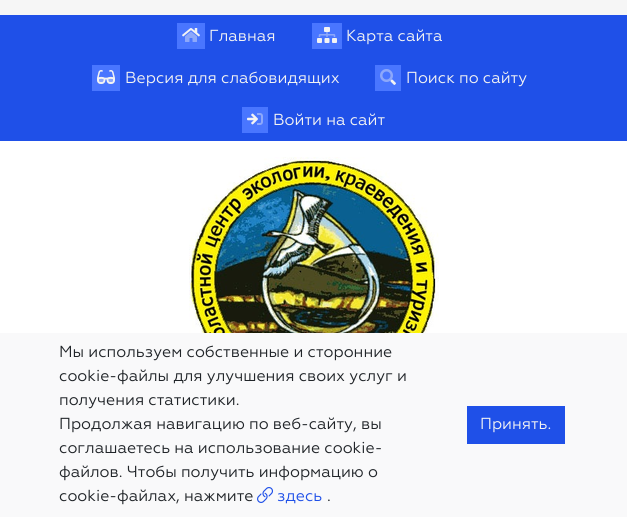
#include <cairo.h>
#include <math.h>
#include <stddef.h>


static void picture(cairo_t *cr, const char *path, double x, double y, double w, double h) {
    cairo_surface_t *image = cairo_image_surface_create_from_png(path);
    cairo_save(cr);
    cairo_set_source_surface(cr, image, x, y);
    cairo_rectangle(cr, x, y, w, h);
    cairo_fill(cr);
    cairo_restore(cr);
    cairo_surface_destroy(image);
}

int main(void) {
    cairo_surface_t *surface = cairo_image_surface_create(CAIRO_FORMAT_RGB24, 627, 517);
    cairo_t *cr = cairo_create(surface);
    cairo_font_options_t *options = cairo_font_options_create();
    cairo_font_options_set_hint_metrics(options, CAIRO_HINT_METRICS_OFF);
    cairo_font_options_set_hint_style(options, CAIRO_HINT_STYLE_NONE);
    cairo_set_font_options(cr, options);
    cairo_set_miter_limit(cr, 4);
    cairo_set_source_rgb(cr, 0.961, 0.961, 0.961);
    cairo_paint(cr);
    cairo_set_source_rgb(cr, 0.122, 0.314, 0.91);
    cairo_rectangle(cr, 0, 15, 627, 126);
    cairo_fill(cr);
    cairo_set_source_rgb(cr, 0.286, 0.463, 1);
    cairo_rectangle(cr, 177, 23, 28, 26);
    cairo_fill(cr);
    picture(cr, "img1.png", 182, 28, 18, 9);
    picture(cr, "img2.png", 185, 31, 12, 11);
    cairo_select_font_face(cr, "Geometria", CAIRO_FONT_SLANT_NORMAL, CAIRO_FONT_WEIGHT_NORMAL);
    cairo_set_font_size(cr, 16);
    cairo_set_source_rgb(cr, 0.953, 0.953, 0.953);
    cairo_move_to(cr, 209, 41);
    cairo_show_text(cr, "Главная");
    cairo_set_source_rgb(cr, 0.286, 0.463, 1);
    cairo_rectangle(cr, 312, 23, 30, 26);
    cairo_fill(cr);
    picture(cr, "img3.png", 317, 27, 20, 16);
    picture(cr, "img4.png", 318, 32, 18, 5);
    cairo_set_source_rgb(cr, 0.953, 0.953, 0.953);
    cairo_move_to(cr, 346, 41);
    cairo_show_text(cr, "Карта сайта");
    cairo_set_source_rgb(cr, 0.286, 0.463, 1);
    cairo_rectangle(cr, 92, 65, 28, 26);
    cairo_fill(cr);
    picture(cr, "img5.png", 97, 70, 18, 14);
    picture(cr, "img6.png", 99, 79, 14, 3);
    cairo_set_source_rgb(cr, 0.953, 0.953, 0.953);
    cairo_move_to(cr, 125, 83);
    cairo_show_text(cr, "Версия для слабовидящих");
    cairo_set_source_rgb(cr, 0.286, 0.463, 1);
    cairo_rectangle(cr, 375, 65, 26, 26);
    cairo_fill(cr);
    picture(cr, "img8.png", 390, 79, 6, 6);
    picture(cr, "img7.png", 380, 69, 13, 13);
    cairo_set_source_rgb(cr, 0.953, 0.953, 0.953);
    cairo_move_to(cr, 406, 83);
    cairo_show_text(cr, "Поиск по сайту");
    cairo_set_source_rgb(cr, 0.286, 0.463, 1);
    cairo_rectangle(cr, 242, 107, 26, 26);
    cairo_fill(cr);
    picture(cr, "img9.png", 247, 113, 11, 12);
    picture(cr, "img10.png", 257, 113, 6, 12);
    cairo_set_source_rgb(cr, 0.953, 0.953, 0.953);
    cairo_move_to(cr, 273, 125);
    cairo_show_text(cr, "Войти на сайт");
    cairo_set_source_rgb(cr, 1, 1, 1);
    cairo_rectangle(cr, 0, 141, 627, 192);
    cairo_fill(cr);
    picture(cr, "img11.png", 189, 157, 250, 176);
    cairo_set_source_rgb(cr, 0.973, 0.976, 0.98);
    cairo_rectangle(cr, 0, 333, 627, 184);
    cairo_fill(cr);
    cairo_set_source_rgb(cr, 0.129, 0.145, 0.161);
    cairo_move_to(cr, 59, 357);
    cairo_show_text(cr, "Мы используем собственные и сторонние");
    cairo_move_to(cr, 59, 381);
    cairo_show_text(cr, "cookie-файлы для улучшения своих услуг и");
    cairo_move_to(cr, 59, 405);
    cairo_show_text(cr, "получения статистики.");
    cairo_move_to(cr, 59, 429);
    cairo_show_text(cr, "Продолжая навигацию по веб-сайту, вы");
    cairo_move_to(cr, 59, 453);
    cairo_show_text(cr, "соглашаетесь на использование cookie-");
    cairo_move_to(cr, 59, 477);
    cairo_show_text(cr, "файлов. Чтобы получить информацию о");
    cairo_move_to(cr, 59, 501);
    cairo_show_text(cr, "cookie-файлах, нажмите");
    picture(cr, "img12.png", 257, 487, 16, 16);
    cairo_set_source_rgb(cr, 0.122, 0.314, 0.91);
    cairo_move_to(cr, 277, 501);
    cairo_show_text(cr, "здесь");
    cairo_set_source_rgb(cr, 0.129, 0.145, 0.161);
    cairo_move_to(cr, 327, 501);
    cairo_show_text(cr, ".");
    cairo_set_source_rgb(cr, 0.122, 0.314, 0.91);
    cairo_rectangle(cr, 467, 406, 98, 38);
    cairo_fill(cr);
    cairo_set_source_rgb(cr, 0.953, 0.953, 0.953);
    cairo_move_to(cr, 480, 429);
    cairo_show_text(cr, "Принять.");
    cairo_surface_write_to_png(surface, "page.png");
    cairo_font_options_destroy(options);
    cairo_destroy(cr);
    cairo_surface_destroy(surface);
    return 0;
}
